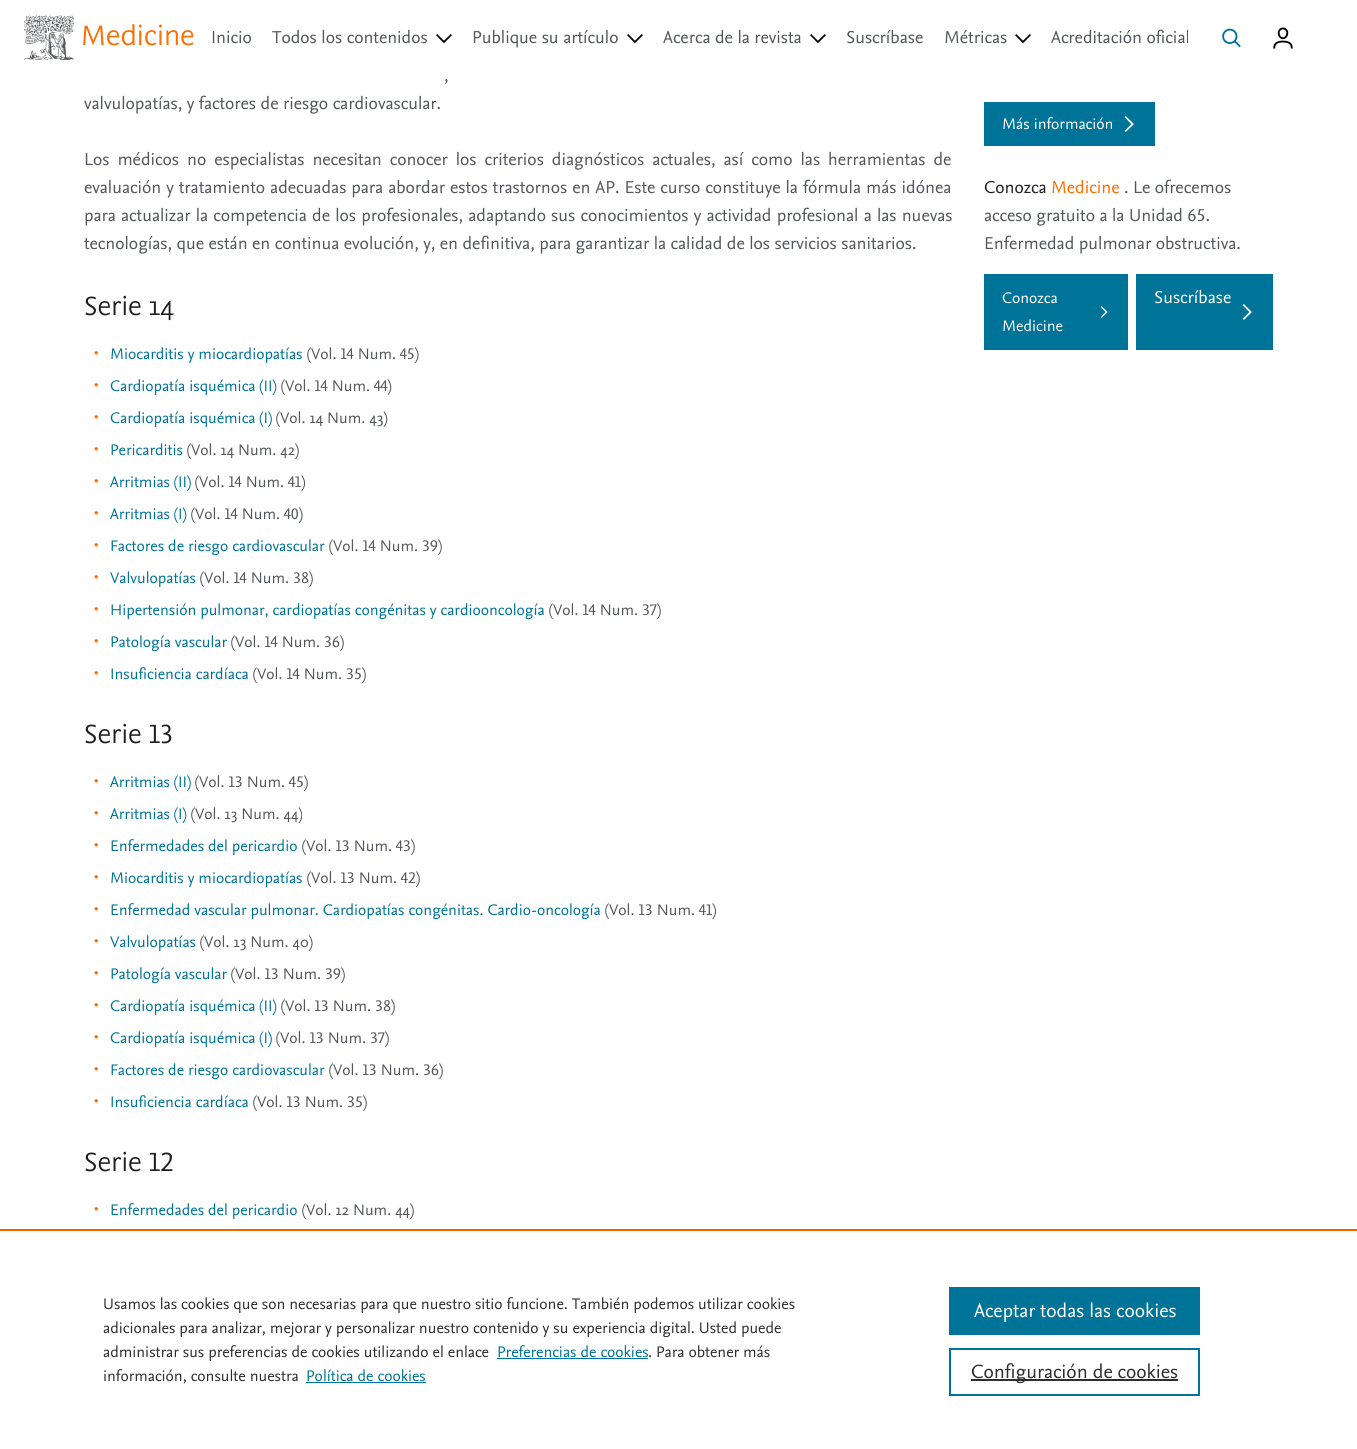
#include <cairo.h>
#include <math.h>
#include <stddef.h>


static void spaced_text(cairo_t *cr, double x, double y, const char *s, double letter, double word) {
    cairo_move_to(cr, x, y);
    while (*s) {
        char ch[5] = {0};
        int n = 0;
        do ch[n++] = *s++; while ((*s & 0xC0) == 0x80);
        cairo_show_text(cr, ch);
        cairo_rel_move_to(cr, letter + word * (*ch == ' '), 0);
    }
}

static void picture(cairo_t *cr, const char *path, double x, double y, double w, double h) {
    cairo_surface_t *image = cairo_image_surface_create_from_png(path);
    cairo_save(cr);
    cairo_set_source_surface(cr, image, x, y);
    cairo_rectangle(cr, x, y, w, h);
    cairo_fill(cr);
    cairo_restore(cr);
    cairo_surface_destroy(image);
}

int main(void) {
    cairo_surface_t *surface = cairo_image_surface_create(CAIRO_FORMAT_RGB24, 1357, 1449);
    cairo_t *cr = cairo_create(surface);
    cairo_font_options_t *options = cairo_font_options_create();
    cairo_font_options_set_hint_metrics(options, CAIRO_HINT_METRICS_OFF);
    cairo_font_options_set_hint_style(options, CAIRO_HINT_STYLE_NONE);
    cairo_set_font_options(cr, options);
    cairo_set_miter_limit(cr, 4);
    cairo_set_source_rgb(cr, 1, 1, 1);
    cairo_paint(cr);
    picture(cr, "img1.png", 24, 15, 50, 46);
    cairo_select_font_face(cr, "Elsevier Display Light", CAIRO_FONT_SLANT_NORMAL, CAIRO_FONT_WEIGHT_NORMAL);
    cairo_set_font_size(cr, 32);
    cairo_set_source_rgb(cr, 1, 0.424, 0);
    cairo_move_to(cr, 81, 45);
    cairo_show_text(cr, "Medicine");
    cairo_select_font_face(cr, "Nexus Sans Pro", CAIRO_FONT_SLANT_NORMAL, CAIRO_FONT_WEIGHT_NORMAL);
    cairo_set_font_size(cr, 18);
    cairo_set_source_rgb(cr, 0.325, 0.337, 0.353);
    cairo_move_to(cr, 211, 43);
    cairo_show_text(cr, "Inicio");
    cairo_move_to(cr, 272, 43);
    cairo_show_text(cr, "Todos los contenidos");
    picture(cr, "img2.png", 436, 34, 16, 10);
    cairo_move_to(cr, 472, 43);
    cairo_show_text(cr, "Publique su artículo");
    picture(cr, "img2.png", 627, 34, 16, 10);
    cairo_move_to(cr, 663, 43);
    cairo_show_text(cr, "Acerca de la revista");
    picture(cr, "img2.png", 810, 34, 16, 10);
    cairo_move_to(cr, 846, 43);
    cairo_show_text(cr, "Suscríbase");
    cairo_move_to(cr, 944, 43);
    cairo_show_text(cr, "Métricas");
    picture(cr, "img2.png", 1015, 34, 16, 10);
    cairo_move_to(cr, 1051, 43);
    cairo_show_text(cr, "Acreditación oficial");
    picture(cr, "img3.png", 1222, 28, 19, 20);
    picture(cr, "img4.png", 1273, 27, 20, 22);
    cairo_move_to(cr, 444, 81);
    cairo_show_text(cr, ",");
    cairo_move_to(cr, 84, 109);
    cairo_show_text(cr, "valvulopatías, y factores de riesgo cardiovascular.");
    spaced_text(cr, 84, 165, "Los médicos no especialistas necesitan conocer los criterios diagnósticos actuales, así como las herramientas de", 0, 3.5);
    spaced_text(cr, 84, 193, "evaluación y tratamiento adecuadas para abordar estos trastornos en AP. Este curso constituye la fórmula más idónea", 0, 0.5);
    spaced_text(cr, 84, 221, "para actualizar la competencia de los profesionales, adaptando sus conocimientos y actividad profesional a las nuevas", 0, 0.7);
    cairo_move_to(cr, 84, 249);
    cairo_show_text(cr, "tecnologías, que están en continua evolución, y, en definitiva, para garantizar la calidad de los servicios sanitarios.");
    cairo_select_font_face(cr, "Elsevier Display Light", CAIRO_FONT_SLANT_NORMAL, CAIRO_FONT_WEIGHT_NORMAL);
    cairo_set_font_size(cr, 30);
    cairo_set_source_rgb(cr, 0.122, 0.122, 0.122);
    cairo_move_to(cr, 84, 315);
    cairo_show_text(cr, "Serie 14");
    cairo_select_font_face(cr, "Nexus Sans Pro", CAIRO_FONT_SLANT_NORMAL, CAIRO_FONT_WEIGHT_NORMAL);
    cairo_set_font_size(cr, 14);
    cairo_set_source_rgb(cr, 1, 0.424, 0);
    cairo_move_to(cr, 94, 356);
    cairo_show_text(cr, "•");
    cairo_set_font_size(cr, 16);
    cairo_set_source_rgb(cr, 0, 0.451, 0.596);
    cairo_move_to(cr, 110, 359);
    cairo_show_text(cr, "Miocarditis y miocardiopatías");
    cairo_select_font_face(cr, "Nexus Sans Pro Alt", CAIRO_FONT_SLANT_NORMAL, CAIRO_FONT_WEIGHT_NORMAL);
    cairo_set_source_rgb(cr, 0.325, 0.337, 0.353);
    cairo_move_to(cr, 307, 359);
    cairo_show_text(cr, "(Vol. 14 Num. 45)");
    cairo_select_font_face(cr, "Nexus Sans Pro", CAIRO_FONT_SLANT_NORMAL, CAIRO_FONT_WEIGHT_NORMAL);
    cairo_set_font_size(cr, 14);
    cairo_set_source_rgb(cr, 1, 0.424, 0);
    cairo_move_to(cr, 94, 388);
    cairo_show_text(cr, "•");
    cairo_set_font_size(cr, 16);
    cairo_set_source_rgb(cr, 0, 0.451, 0.596);
    cairo_move_to(cr, 110, 391);
    cairo_show_text(cr, "Cardiopatía isquémica (II)");
    cairo_select_font_face(cr, "Nexus Sans Pro Alt", CAIRO_FONT_SLANT_NORMAL, CAIRO_FONT_WEIGHT_NORMAL);
    cairo_set_source_rgb(cr, 0.325, 0.337, 0.353);
    cairo_move_to(cr, 281, 391);
    cairo_show_text(cr, "(Vol. 14 Num. 44)");
    cairo_select_font_face(cr, "Nexus Sans Pro", CAIRO_FONT_SLANT_NORMAL, CAIRO_FONT_WEIGHT_NORMAL);
    cairo_set_font_size(cr, 14);
    cairo_set_source_rgb(cr, 1, 0.424, 0);
    cairo_move_to(cr, 94, 420);
    cairo_show_text(cr, "•");
    cairo_set_font_size(cr, 16);
    cairo_set_source_rgb(cr, 0, 0.451, 0.596);
    cairo_move_to(cr, 110, 423);
    cairo_show_text(cr, "Cardiopatía isquémica (I)");
    cairo_set_source_rgb(cr, 0.325, 0.337, 0.353);
    cairo_move_to(cr, 276, 423);
    cairo_show_text(cr, "(Vol. 14 Num. 43)");
    cairo_set_font_size(cr, 14);
    cairo_set_source_rgb(cr, 1, 0.424, 0);
    cairo_move_to(cr, 94, 452);
    cairo_show_text(cr, "•");
    cairo_set_font_size(cr, 16);
    cairo_set_source_rgb(cr, 0, 0.451, 0.596);
    cairo_move_to(cr, 110, 455);
    cairo_show_text(cr, "Pericarditis");
    cairo_set_source_rgb(cr, 0.325, 0.337, 0.353);
    cairo_move_to(cr, 187, 455);
    cairo_show_text(cr, "(Vol. 14 Num. 42)");
    cairo_set_font_size(cr, 14);
    cairo_set_source_rgb(cr, 1, 0.424, 0);
    cairo_move_to(cr, 94, 484);
    cairo_show_text(cr, "•");
    cairo_set_font_size(cr, 16);
    cairo_set_source_rgb(cr, 0, 0.451, 0.596);
    cairo_move_to(cr, 110, 487);
    cairo_show_text(cr, "Arritmias (II)");
    cairo_select_font_face(cr, "Nexus Sans Pro Alt", CAIRO_FONT_SLANT_NORMAL, CAIRO_FONT_WEIGHT_NORMAL);
    cairo_set_source_rgb(cr, 0.325, 0.337, 0.353);
    cairo_move_to(cr, 195, 487);
    cairo_show_text(cr, "(Vol. 14 Num. 41)");
    cairo_select_font_face(cr, "Nexus Sans Pro", CAIRO_FONT_SLANT_NORMAL, CAIRO_FONT_WEIGHT_NORMAL);
    cairo_set_font_size(cr, 14);
    cairo_set_source_rgb(cr, 1, 0.424, 0);
    cairo_move_to(cr, 94, 516);
    cairo_show_text(cr, "•");
    cairo_set_font_size(cr, 16);
    cairo_set_source_rgb(cr, 0, 0.451, 0.596);
    cairo_move_to(cr, 110, 519);
    cairo_show_text(cr, "Arritmias (I)");
    cairo_select_font_face(cr, "Nexus Sans Pro Alt", CAIRO_FONT_SLANT_NORMAL, CAIRO_FONT_WEIGHT_NORMAL);
    cairo_set_source_rgb(cr, 0.325, 0.337, 0.353);
    cairo_move_to(cr, 191, 519);
    cairo_show_text(cr, "(Vol. 14 Num. 40)");
    cairo_select_font_face(cr, "Nexus Sans Pro", CAIRO_FONT_SLANT_NORMAL, CAIRO_FONT_WEIGHT_NORMAL);
    cairo_set_font_size(cr, 14);
    cairo_set_source_rgb(cr, 1, 0.424, 0);
    cairo_move_to(cr, 94, 548);
    cairo_show_text(cr, "•");
    cairo_set_font_size(cr, 16);
    cairo_set_source_rgb(cr, 0, 0.451, 0.596);
    cairo_move_to(cr, 110, 551);
    cairo_show_text(cr, "Factores de riesgo cardiovascular");
    cairo_select_font_face(cr, "Nexus Sans Pro Alt", CAIRO_FONT_SLANT_NORMAL, CAIRO_FONT_WEIGHT_NORMAL);
    cairo_set_source_rgb(cr, 0.325, 0.337, 0.353);
    cairo_move_to(cr, 329, 551);
    cairo_show_text(cr, "(Vol. 14 Num. 39)");
    cairo_select_font_face(cr, "Nexus Sans Pro", CAIRO_FONT_SLANT_NORMAL, CAIRO_FONT_WEIGHT_NORMAL);
    cairo_set_font_size(cr, 14);
    cairo_set_source_rgb(cr, 1, 0.424, 0);
    cairo_move_to(cr, 94, 580);
    cairo_show_text(cr, "•");
    cairo_set_font_size(cr, 16);
    cairo_set_source_rgb(cr, 0, 0.451, 0.596);
    cairo_move_to(cr, 110, 583);
    cairo_show_text(cr, "Valvulopatías");
    cairo_select_font_face(cr, "Nexus Sans Pro Alt", CAIRO_FONT_SLANT_NORMAL, CAIRO_FONT_WEIGHT_NORMAL);
    cairo_set_source_rgb(cr, 0.325, 0.337, 0.353);
    cairo_move_to(cr, 200, 583);
    cairo_show_text(cr, "(Vol. 14 Num. 38)");
    cairo_select_font_face(cr, "Nexus Sans Pro", CAIRO_FONT_SLANT_NORMAL, CAIRO_FONT_WEIGHT_NORMAL);
    cairo_set_font_size(cr, 14);
    cairo_set_source_rgb(cr, 1, 0.424, 0);
    cairo_move_to(cr, 94, 612);
    cairo_show_text(cr, "•");
    cairo_set_font_size(cr, 16);
    cairo_set_source_rgb(cr, 0, 0.451, 0.596);
    cairo_move_to(cr, 110, 615);
    cairo_show_text(cr, "Hipertensión pulmonar, cardiopatías congénitas y cardiooncología");
    cairo_select_font_face(cr, "Nexus Sans Pro Alt", CAIRO_FONT_SLANT_NORMAL, CAIRO_FONT_WEIGHT_NORMAL);
    cairo_set_source_rgb(cr, 0.325, 0.337, 0.353);
    cairo_move_to(cr, 549, 615);
    cairo_show_text(cr, "(Vol. 14 Num. 37)");
    cairo_select_font_face(cr, "Nexus Sans Pro", CAIRO_FONT_SLANT_NORMAL, CAIRO_FONT_WEIGHT_NORMAL);
    cairo_set_font_size(cr, 14);
    cairo_set_source_rgb(cr, 1, 0.424, 0);
    cairo_move_to(cr, 94, 644);
    cairo_show_text(cr, "•");
    cairo_set_font_size(cr, 16);
    cairo_set_source_rgb(cr, 0, 0.451, 0.596);
    cairo_move_to(cr, 110, 647);
    cairo_show_text(cr, "Patología vascular");
    cairo_select_font_face(cr, "Nexus Sans Pro Alt", CAIRO_FONT_SLANT_NORMAL, CAIRO_FONT_WEIGHT_NORMAL);
    cairo_set_source_rgb(cr, 0.325, 0.337, 0.353);
    cairo_move_to(cr, 231, 647);
    cairo_show_text(cr, "(Vol. 14 Num. 36)");
    cairo_select_font_face(cr, "Nexus Sans Pro", CAIRO_FONT_SLANT_NORMAL, CAIRO_FONT_WEIGHT_NORMAL);
    cairo_set_font_size(cr, 14);
    cairo_set_source_rgb(cr, 1, 0.424, 0);
    cairo_move_to(cr, 94, 676);
    cairo_show_text(cr, "•");
    cairo_set_font_size(cr, 16);
    cairo_set_source_rgb(cr, 0, 0.451, 0.596);
    cairo_move_to(cr, 110, 679);
    cairo_show_text(cr, "Insuficiencia cardíaca");
    cairo_select_font_face(cr, "Nexus Sans Pro Alt", CAIRO_FONT_SLANT_NORMAL, CAIRO_FONT_WEIGHT_NORMAL);
    cairo_set_source_rgb(cr, 0.325, 0.337, 0.353);
    cairo_move_to(cr, 253, 679);
    cairo_show_text(cr, "(Vol. 14 Num. 35)");
    cairo_select_font_face(cr, "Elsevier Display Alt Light", CAIRO_FONT_SLANT_NORMAL, CAIRO_FONT_WEIGHT_NORMAL);
    cairo_set_font_size(cr, 30);
    cairo_set_source_rgb(cr, 0.122, 0.122, 0.122);
    cairo_move_to(cr, 84, 743);
    cairo_show_text(cr, "Serie 13");
    cairo_select_font_face(cr, "Nexus Sans Pro", CAIRO_FONT_SLANT_NORMAL, CAIRO_FONT_WEIGHT_NORMAL);
    cairo_set_font_size(cr, 14);
    cairo_set_source_rgb(cr, 1, 0.424, 0);
    cairo_move_to(cr, 94, 784);
    cairo_show_text(cr, "•");
    cairo_set_font_size(cr, 16);
    cairo_set_source_rgb(cr, 0, 0.451, 0.596);
    cairo_move_to(cr, 110, 787);
    cairo_show_text(cr, "Arritmias (II)");
    cairo_select_font_face(cr, "Nexus Sans Pro Alt", CAIRO_FONT_SLANT_NORMAL, CAIRO_FONT_WEIGHT_NORMAL);
    cairo_set_source_rgb(cr, 0.325, 0.337, 0.353);
    cairo_move_to(cr, 195, 787);
    cairo_show_text(cr, "(Vol. 13 Num. 45)");
    cairo_select_font_face(cr, "Nexus Sans Pro", CAIRO_FONT_SLANT_NORMAL, CAIRO_FONT_WEIGHT_NORMAL);
    cairo_set_font_size(cr, 14);
    cairo_set_source_rgb(cr, 1, 0.424, 0);
    cairo_move_to(cr, 94, 816);
    cairo_show_text(cr, "•");
    cairo_set_font_size(cr, 16);
    cairo_set_source_rgb(cr, 0, 0.451, 0.596);
    cairo_move_to(cr, 110, 819);
    cairo_show_text(cr, "Arritmias (I)");
    cairo_set_source_rgb(cr, 0.325, 0.337, 0.353);
    cairo_move_to(cr, 191, 819);
    cairo_show_text(cr, "(Vol. 13 Num. 44)");
    cairo_set_font_size(cr, 14);
    cairo_set_source_rgb(cr, 1, 0.424, 0);
    cairo_move_to(cr, 94, 848);
    cairo_show_text(cr, "•");
    cairo_set_font_size(cr, 16);
    cairo_set_source_rgb(cr, 0, 0.451, 0.596);
    cairo_move_to(cr, 110, 851);
    cairo_show_text(cr, "Enfermedades del pericardio");
    cairo_select_font_face(cr, "Nexus Sans Pro Alt", CAIRO_FONT_SLANT_NORMAL, CAIRO_FONT_WEIGHT_NORMAL);
    cairo_set_source_rgb(cr, 0.325, 0.337, 0.353);
    cairo_move_to(cr, 302, 851);
    cairo_show_text(cr, "(Vol. 13 Num. 43)");
    cairo_select_font_face(cr, "Nexus Sans Pro", CAIRO_FONT_SLANT_NORMAL, CAIRO_FONT_WEIGHT_NORMAL);
    cairo_set_font_size(cr, 14);
    cairo_set_source_rgb(cr, 1, 0.424, 0);
    cairo_move_to(cr, 94, 880);
    cairo_show_text(cr, "•");
    cairo_set_font_size(cr, 16);
    cairo_set_source_rgb(cr, 0, 0.451, 0.596);
    cairo_move_to(cr, 110, 883);
    cairo_show_text(cr, "Miocarditis y miocardiopatías");
    cairo_select_font_face(cr, "Nexus Sans Pro Alt", CAIRO_FONT_SLANT_NORMAL, CAIRO_FONT_WEIGHT_NORMAL);
    cairo_set_source_rgb(cr, 0.325, 0.337, 0.353);
    cairo_move_to(cr, 307, 883);
    cairo_show_text(cr, "(Vol. 13 Num. 42)");
    cairo_select_font_face(cr, "Nexus Sans Pro", CAIRO_FONT_SLANT_NORMAL, CAIRO_FONT_WEIGHT_NORMAL);
    cairo_set_font_size(cr, 14);
    cairo_set_source_rgb(cr, 1, 0.424, 0);
    cairo_move_to(cr, 94, 912);
    cairo_show_text(cr, "•");
    cairo_set_font_size(cr, 16);
    cairo_set_source_rgb(cr, 0, 0.451, 0.596);
    cairo_move_to(cr, 110, 915);
    cairo_show_text(cr, "Enfermedad vascular pulmonar. Cardiopatías congénitas. Cardio-oncología");
    cairo_select_font_face(cr, "Nexus Sans Pro Alt", CAIRO_FONT_SLANT_NORMAL, CAIRO_FONT_WEIGHT_NORMAL);
    cairo_set_source_rgb(cr, 0.325, 0.337, 0.353);
    cairo_move_to(cr, 605, 915);
    cairo_show_text(cr, "(Vol. 13 Num. 41)");
    cairo_select_font_face(cr, "Nexus Sans Pro", CAIRO_FONT_SLANT_NORMAL, CAIRO_FONT_WEIGHT_NORMAL);
    cairo_set_font_size(cr, 14);
    cairo_set_source_rgb(cr, 1, 0.424, 0);
    cairo_move_to(cr, 94, 944);
    cairo_show_text(cr, "•");
    cairo_set_font_size(cr, 16);
    cairo_set_source_rgb(cr, 0, 0.451, 0.596);
    cairo_move_to(cr, 110, 947);
    cairo_show_text(cr, "Valvulopatías");
    cairo_set_source_rgb(cr, 0.325, 0.337, 0.353);
    cairo_move_to(cr, 200, 947);
    cairo_show_text(cr, "(Vol. 13 Num. 40)");
    cairo_set_font_size(cr, 14);
    cairo_set_source_rgb(cr, 1, 0.424, 0);
    cairo_move_to(cr, 94, 976);
    cairo_show_text(cr, "•");
    cairo_set_font_size(cr, 16);
    cairo_set_source_rgb(cr, 0, 0.451, 0.596);
    cairo_move_to(cr, 110, 979);
    cairo_show_text(cr, "Patología vascular");
    cairo_select_font_face(cr, "Nexus Sans Pro Alt", CAIRO_FONT_SLANT_NORMAL, CAIRO_FONT_WEIGHT_NORMAL);
    cairo_set_source_rgb(cr, 0.325, 0.337, 0.353);
    cairo_move_to(cr, 231, 979);
    cairo_show_text(cr, "(Vol. 13 Num. 39)");
    cairo_select_font_face(cr, "Nexus Sans Pro", CAIRO_FONT_SLANT_NORMAL, CAIRO_FONT_WEIGHT_NORMAL);
    cairo_set_font_size(cr, 14);
    cairo_set_source_rgb(cr, 1, 0.424, 0);
    cairo_move_to(cr, 94, 1008);
    cairo_show_text(cr, "•");
    cairo_set_font_size(cr, 16);
    cairo_set_source_rgb(cr, 0, 0.451, 0.596);
    cairo_move_to(cr, 110, 1011);
    cairo_show_text(cr, "Cardiopatía isquémica (II)");
    cairo_select_font_face(cr, "Nexus Sans Pro Alt", CAIRO_FONT_SLANT_NORMAL, CAIRO_FONT_WEIGHT_NORMAL);
    cairo_set_source_rgb(cr, 0.325, 0.337, 0.353);
    cairo_move_to(cr, 281, 1011);
    cairo_show_text(cr, "(Vol. 13 Num. 38)");
    cairo_select_font_face(cr, "Nexus Sans Pro", CAIRO_FONT_SLANT_NORMAL, CAIRO_FONT_WEIGHT_NORMAL);
    cairo_set_font_size(cr, 14);
    cairo_set_source_rgb(cr, 1, 0.424, 0);
    cairo_move_to(cr, 94, 1040);
    cairo_show_text(cr, "•");
    cairo_set_font_size(cr, 16);
    cairo_set_source_rgb(cr, 0, 0.451, 0.596);
    cairo_move_to(cr, 110, 1043);
    cairo_show_text(cr, "Cardiopatía isquémica (I)");
    cairo_select_font_face(cr, "Nexus Sans Pro Alt", CAIRO_FONT_SLANT_NORMAL, CAIRO_FONT_WEIGHT_NORMAL);
    cairo_set_source_rgb(cr, 0.325, 0.337, 0.353);
    cairo_move_to(cr, 276, 1043);
    cairo_show_text(cr, "(Vol. 13 Num. 37)");
    cairo_select_font_face(cr, "Nexus Sans Pro", CAIRO_FONT_SLANT_NORMAL, CAIRO_FONT_WEIGHT_NORMAL);
    cairo_set_font_size(cr, 14);
    cairo_set_source_rgb(cr, 1, 0.424, 0);
    cairo_move_to(cr, 94, 1072);
    cairo_show_text(cr, "•");
    cairo_set_font_size(cr, 16);
    cairo_set_source_rgb(cr, 0, 0.451, 0.596);
    cairo_move_to(cr, 110, 1075);
    cairo_show_text(cr, "Factores de riesgo cardiovascular");
    cairo_select_font_face(cr, "Nexus Sans Pro Alt", CAIRO_FONT_SLANT_NORMAL, CAIRO_FONT_WEIGHT_NORMAL);
    cairo_set_source_rgb(cr, 0.325, 0.337, 0.353);
    cairo_move_to(cr, 329, 1075);
    cairo_show_text(cr, "(Vol. 13 Num. 36)");
    cairo_select_font_face(cr, "Nexus Sans Pro", CAIRO_FONT_SLANT_NORMAL, CAIRO_FONT_WEIGHT_NORMAL);
    cairo_set_font_size(cr, 14);
    cairo_set_source_rgb(cr, 1, 0.424, 0);
    cairo_move_to(cr, 94, 1104);
    cairo_show_text(cr, "•");
    cairo_set_font_size(cr, 16);
    cairo_set_source_rgb(cr, 0, 0.451, 0.596);
    cairo_move_to(cr, 110, 1107);
    cairo_show_text(cr, "Insuficiencia cardíaca");
    cairo_select_font_face(cr, "Nexus Sans Pro Alt", CAIRO_FONT_SLANT_NORMAL, CAIRO_FONT_WEIGHT_NORMAL);
    cairo_set_source_rgb(cr, 0.325, 0.337, 0.353);
    cairo_move_to(cr, 253, 1107);
    cairo_show_text(cr, "(Vol. 13 Num. 35)");
    cairo_select_font_face(cr, "Elsevier Display Alt Light", CAIRO_FONT_SLANT_NORMAL, CAIRO_FONT_WEIGHT_NORMAL);
    cairo_set_font_size(cr, 30);
    cairo_set_source_rgb(cr, 0.122, 0.122, 0.122);
    cairo_move_to(cr, 84, 1171);
    cairo_show_text(cr, "Serie 12");
    cairo_select_font_face(cr, "Nexus Sans Pro", CAIRO_FONT_SLANT_NORMAL, CAIRO_FONT_WEIGHT_NORMAL);
    cairo_set_font_size(cr, 14);
    cairo_set_source_rgb(cr, 1, 0.424, 0);
    cairo_move_to(cr, 94, 1212);
    cairo_show_text(cr, "•");
    cairo_set_font_size(cr, 16);
    cairo_set_source_rgb(cr, 0, 0.451, 0.596);
    cairo_move_to(cr, 110, 1215);
    cairo_show_text(cr, "Enfermedades del pericardio");
    cairo_set_source_rgb(cr, 0.325, 0.337, 0.353);
    cairo_move_to(cr, 302, 1215);
    cairo_show_text(cr, "(Vol. 12 Num. 44)");
    cairo_set_source_rgb(cr, 0, 0.451, 0.596);
    cairo_rectangle(cr, 984, 102, 171, 44);
    cairo_fill(cr);
    cairo_set_source_rgb(cr, 1, 1, 1);
    cairo_move_to(cr, 1002, 129);
    cairo_show_text(cr, "Más información");
    picture(cr, "img5.png", 1124, 116, 10, 16);
    cairo_set_font_size(cr, 18);
    cairo_set_source_rgb(cr, 0.122, 0.122, 0.122);
    cairo_move_to(cr, 984, 193);
    cairo_show_text(cr, "Conozca");
    cairo_set_source_rgb(cr, 1, 0.424, 0);
    cairo_move_to(cr, 1051, 193);
    cairo_show_text(cr, "Medicine");
    cairo_set_source_rgb(cr, 0.325, 0.337, 0.353);
    cairo_move_to(cr, 1124, 193);
    cairo_show_text(cr, ". Le ofrecemos");
    cairo_select_font_face(cr, "Nexus Sans Pro Alt", CAIRO_FONT_SLANT_NORMAL, CAIRO_FONT_WEIGHT_NORMAL);
    cairo_move_to(cr, 984, 221);
    cairo_show_text(cr, "acceso gratuito a la Unidad 65.");
    cairo_select_font_face(cr, "Nexus Sans Pro", CAIRO_FONT_SLANT_NORMAL, CAIRO_FONT_WEIGHT_NORMAL);
    cairo_move_to(cr, 984, 249);
    cairo_show_text(cr, "Enfermedad pulmonar obstructiva.");
    cairo_set_source_rgb(cr, 0, 0.451, 0.596);
    cairo_rectangle(cr, 984, 274, 144, 76);
    cairo_fill(cr);
    cairo_set_font_size(cr, 16);
    cairo_set_source_rgb(cr, 1, 1, 1);
    cairo_move_to(cr, 1002, 303);
    cairo_show_text(cr, "Conozca");
    picture(cr, "img6.png", 1100, 306, 8, 12);
    cairo_move_to(cr, 1002, 331);
    cairo_show_text(cr, "Medicine");
    cairo_set_source_rgb(cr, 0, 0.451, 0.596);
    cairo_rectangle(cr, 1136, 274, 137, 76);
    cairo_fill(cr);
    cairo_set_font_size(cr, 18);
    cairo_set_source_rgb(cr, 1, 1, 1);
    cairo_move_to(cr, 1154, 303);
    cairo_show_text(cr, "Suscríbase");
    picture(cr, "img7.png", 1242, 304, 10, 16);
    cairo_set_source_rgb(cr, 0.922, 0.396, 0);
    cairo_rectangle(cr, 0, 1229, 1357, 2);
    cairo_fill(cr);
    cairo_set_font_size(cr, 16);
    cairo_set_source_rgb(cr, 0.18, 0.18, 0.18);
    cairo_move_to(cr, 103, 1309);
    cairo_show_text(cr, "Usamos las cookies que son necesarias para que nuestro sitio funcione. También podemos utilizar cookies");
    cairo_move_to(cr, 103, 1333);
    cairo_show_text(cr, "adicionales para analizar, mejorar y personalizar nuestro contenido y su experiencia digital. Usted puede");
    cairo_move_to(cr, 103, 1357);
    cairo_show_text(cr, "administrar sus preferencias de cookies utilizando el enlace");
    cairo_set_source_rgb(cr, 0, 0.451, 0.596);
    cairo_move_to(cr, 497, 1357);
    cairo_show_text(cr, "Preferencias de cookies");
    cairo_rectangle(cr, 497, 1358, 151, 1);
    cairo_fill(cr);
    cairo_set_source_rgb(cr, 0.18, 0.18, 0.18);
    cairo_move_to(cr, 648, 1357);
    cairo_show_text(cr, ". Para obtener más");
    cairo_move_to(cr, 103, 1381);
    cairo_show_text(cr, "información, consulte nuestra");
    cairo_set_source_rgb(cr, 0, 0.451, 0.596);
    cairo_move_to(cr, 306, 1381);
    cairo_show_text(cr, "Política de cookies");
    cairo_rectangle(cr, 306, 1382, 120, 1);
    cairo_fill(cr);
    cairo_rectangle(cr, 949, 1287, 251, 48);
    cairo_fill(cr);
    cairo_set_font_size(cr, 20);
    cairo_set_source_rgb(cr, 1, 1, 1);
    cairo_move_to(cr, 974, 1317);
    cairo_show_text(cr, "Aceptar todas las cookies");
    cairo_rectangle(cr, 950, 1349, 249, 46);
    cairo_set_source_rgb(cr, 0, 0.451, 0.596);
    cairo_stroke(cr);
    cairo_set_source_rgb(cr, 0.18, 0.18, 0.18);
    cairo_rectangle(cr, 971, 1379, 207, 2);
    cairo_fill(cr);
    cairo_move_to(cr, 971, 1378);
    cairo_show_text(cr, "Configuración de cookies");
    cairo_surface_write_to_png(surface, "page.png");
    cairo_font_options_destroy(options);
    cairo_destroy(cr);
    cairo_surface_destroy(surface);
    return 0;
}
